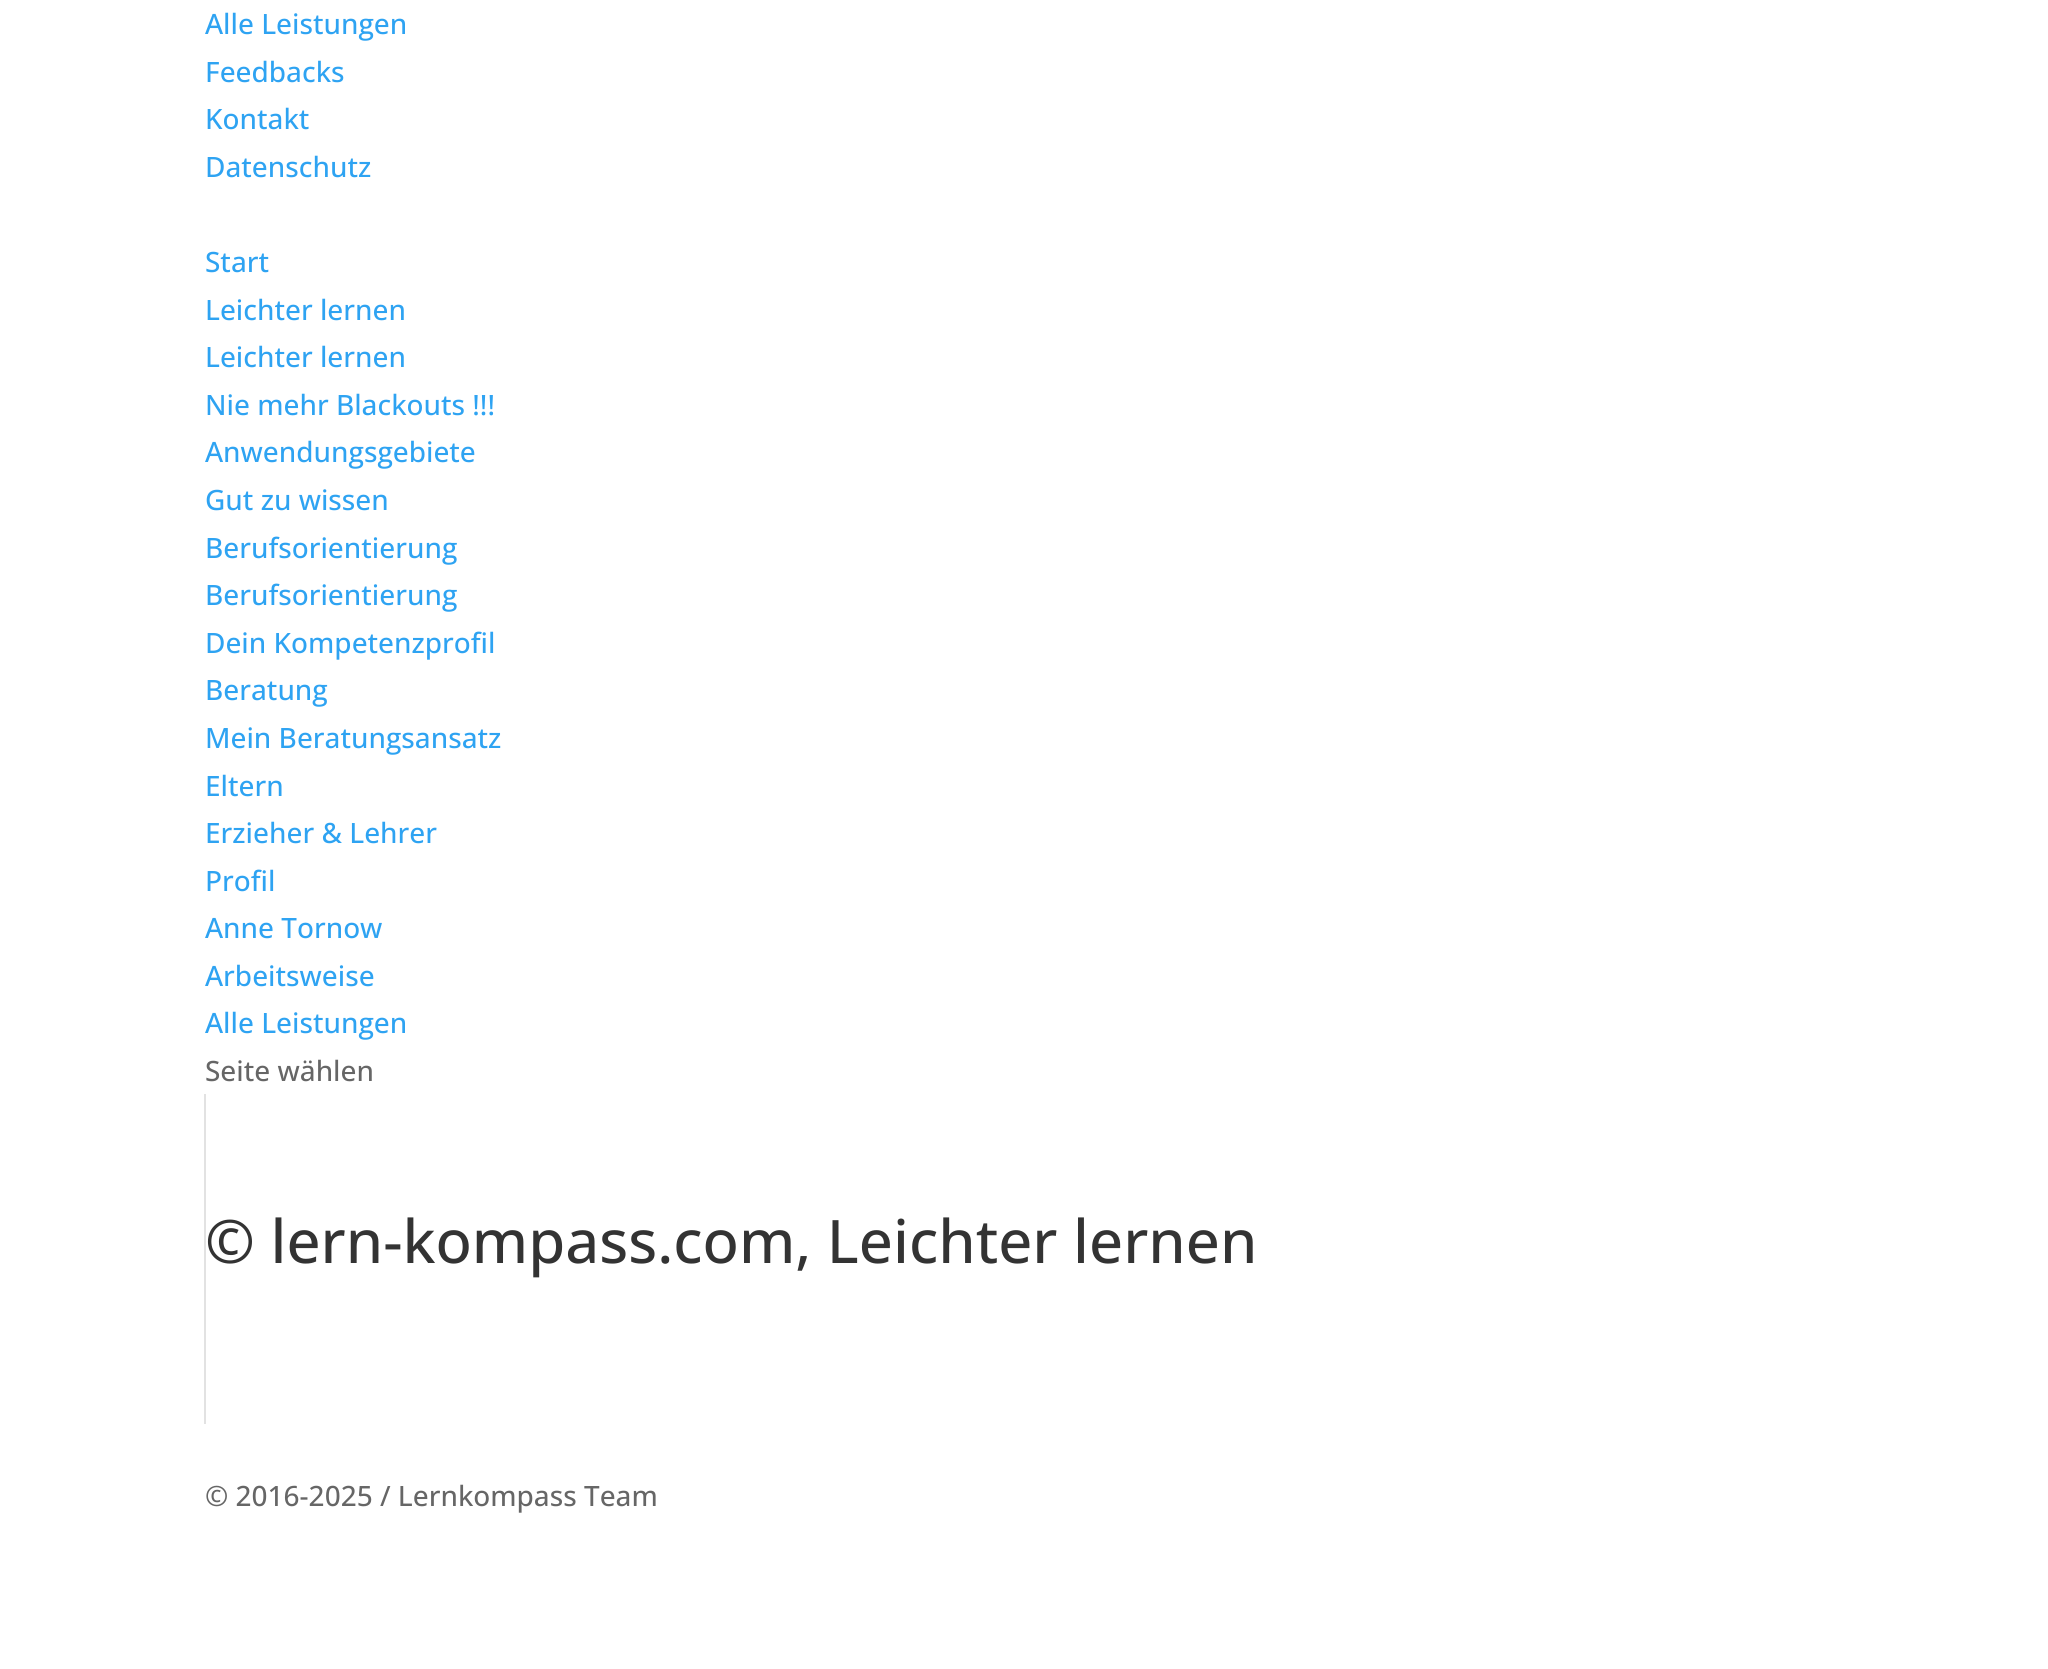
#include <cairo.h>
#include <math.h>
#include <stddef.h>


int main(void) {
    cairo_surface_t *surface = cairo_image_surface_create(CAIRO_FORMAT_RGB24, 2048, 1669);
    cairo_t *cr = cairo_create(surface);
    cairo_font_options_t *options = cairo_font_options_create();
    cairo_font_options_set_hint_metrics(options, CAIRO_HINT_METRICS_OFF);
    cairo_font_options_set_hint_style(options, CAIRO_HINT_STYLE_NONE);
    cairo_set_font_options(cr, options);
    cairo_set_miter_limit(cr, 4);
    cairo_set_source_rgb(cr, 1, 1, 1);
    cairo_paint(cr);
    cairo_select_font_face(cr, "Open Sans Medium", CAIRO_FONT_SLANT_NORMAL, CAIRO_FONT_WEIGHT_NORMAL);
    cairo_set_font_size(cr, 28);
    cairo_set_source_rgb(cr, 0.18, 0.639, 0.949);
    cairo_move_to(cr, 205, 34);
    cairo_show_text(cr, "Alle Leistungen");
    cairo_move_to(cr, 205, 82);
    cairo_show_text(cr, "Feedbacks");
    cairo_move_to(cr, 205, 129);
    cairo_show_text(cr, "Kontakt");
    cairo_move_to(cr, 205, 177);
    cairo_show_text(cr, "Datenschutz");
    cairo_move_to(cr, 205, 272);
    cairo_show_text(cr, "Start");
    cairo_move_to(cr, 205, 320);
    cairo_show_text(cr, "Leichter lernen");
    cairo_move_to(cr, 205, 367);
    cairo_show_text(cr, "Leichter lernen");
    cairo_move_to(cr, 205, 415);
    cairo_show_text(cr, "Nie mehr Blackouts !!!");
    cairo_move_to(cr, 205, 462);
    cairo_show_text(cr, "Anwendungsgebiete");
    cairo_move_to(cr, 205, 510);
    cairo_show_text(cr, "Gut zu wissen");
    cairo_move_to(cr, 205, 558);
    cairo_show_text(cr, "Berufsorientierung");
    cairo_move_to(cr, 205, 605);
    cairo_show_text(cr, "Berufsorientierung");
    cairo_move_to(cr, 205, 653);
    cairo_show_text(cr, "Dein Kompetenzprofil");
    cairo_move_to(cr, 205, 700);
    cairo_show_text(cr, "Beratung");
    cairo_move_to(cr, 205, 748);
    cairo_show_text(cr, "Mein Beratungsansatz");
    cairo_move_to(cr, 205, 796);
    cairo_show_text(cr, "Eltern");
    cairo_move_to(cr, 205, 843);
    cairo_show_text(cr, "Erzieher & Lehrer");
    cairo_move_to(cr, 205, 891);
    cairo_show_text(cr, "Profil");
    cairo_move_to(cr, 205, 938);
    cairo_show_text(cr, "Anne Tornow");
    cairo_move_to(cr, 205, 986);
    cairo_show_text(cr, "Arbeitsweise");
    cairo_move_to(cr, 205, 1033);
    cairo_show_text(cr, "Alle Leistungen");
    cairo_set_source_rgb(cr, 0.4, 0.4, 0.4);
    cairo_move_to(cr, 205, 1081);
    cairo_show_text(cr, "Seite wählen");
    cairo_set_source_rgb(cr, 0.886, 0.886, 0.886);
    cairo_rectangle(cr, 204, 1094, 2, 330);
    cairo_fill(cr);
    cairo_set_font_size(cr, 60);
    cairo_set_source_rgb(cr, 0.2, 0.2, 0.2);
    cairo_move_to(cr, 205, 1263);
    cairo_show_text(cr, "© lern-kompass.com, Leichter lernen");
    cairo_set_font_size(cr, 28);
    cairo_set_source_rgb(cr, 0.4, 0.4, 0.4);
    cairo_move_to(cr, 205, 1506);
    cairo_show_text(cr, "© 2016-2025 / Lernkompass Team");
    cairo_surface_write_to_png(surface, "page.png");
    cairo_font_options_destroy(options);
    cairo_destroy(cr);
    cairo_surface_destroy(surface);
    return 0;
}
